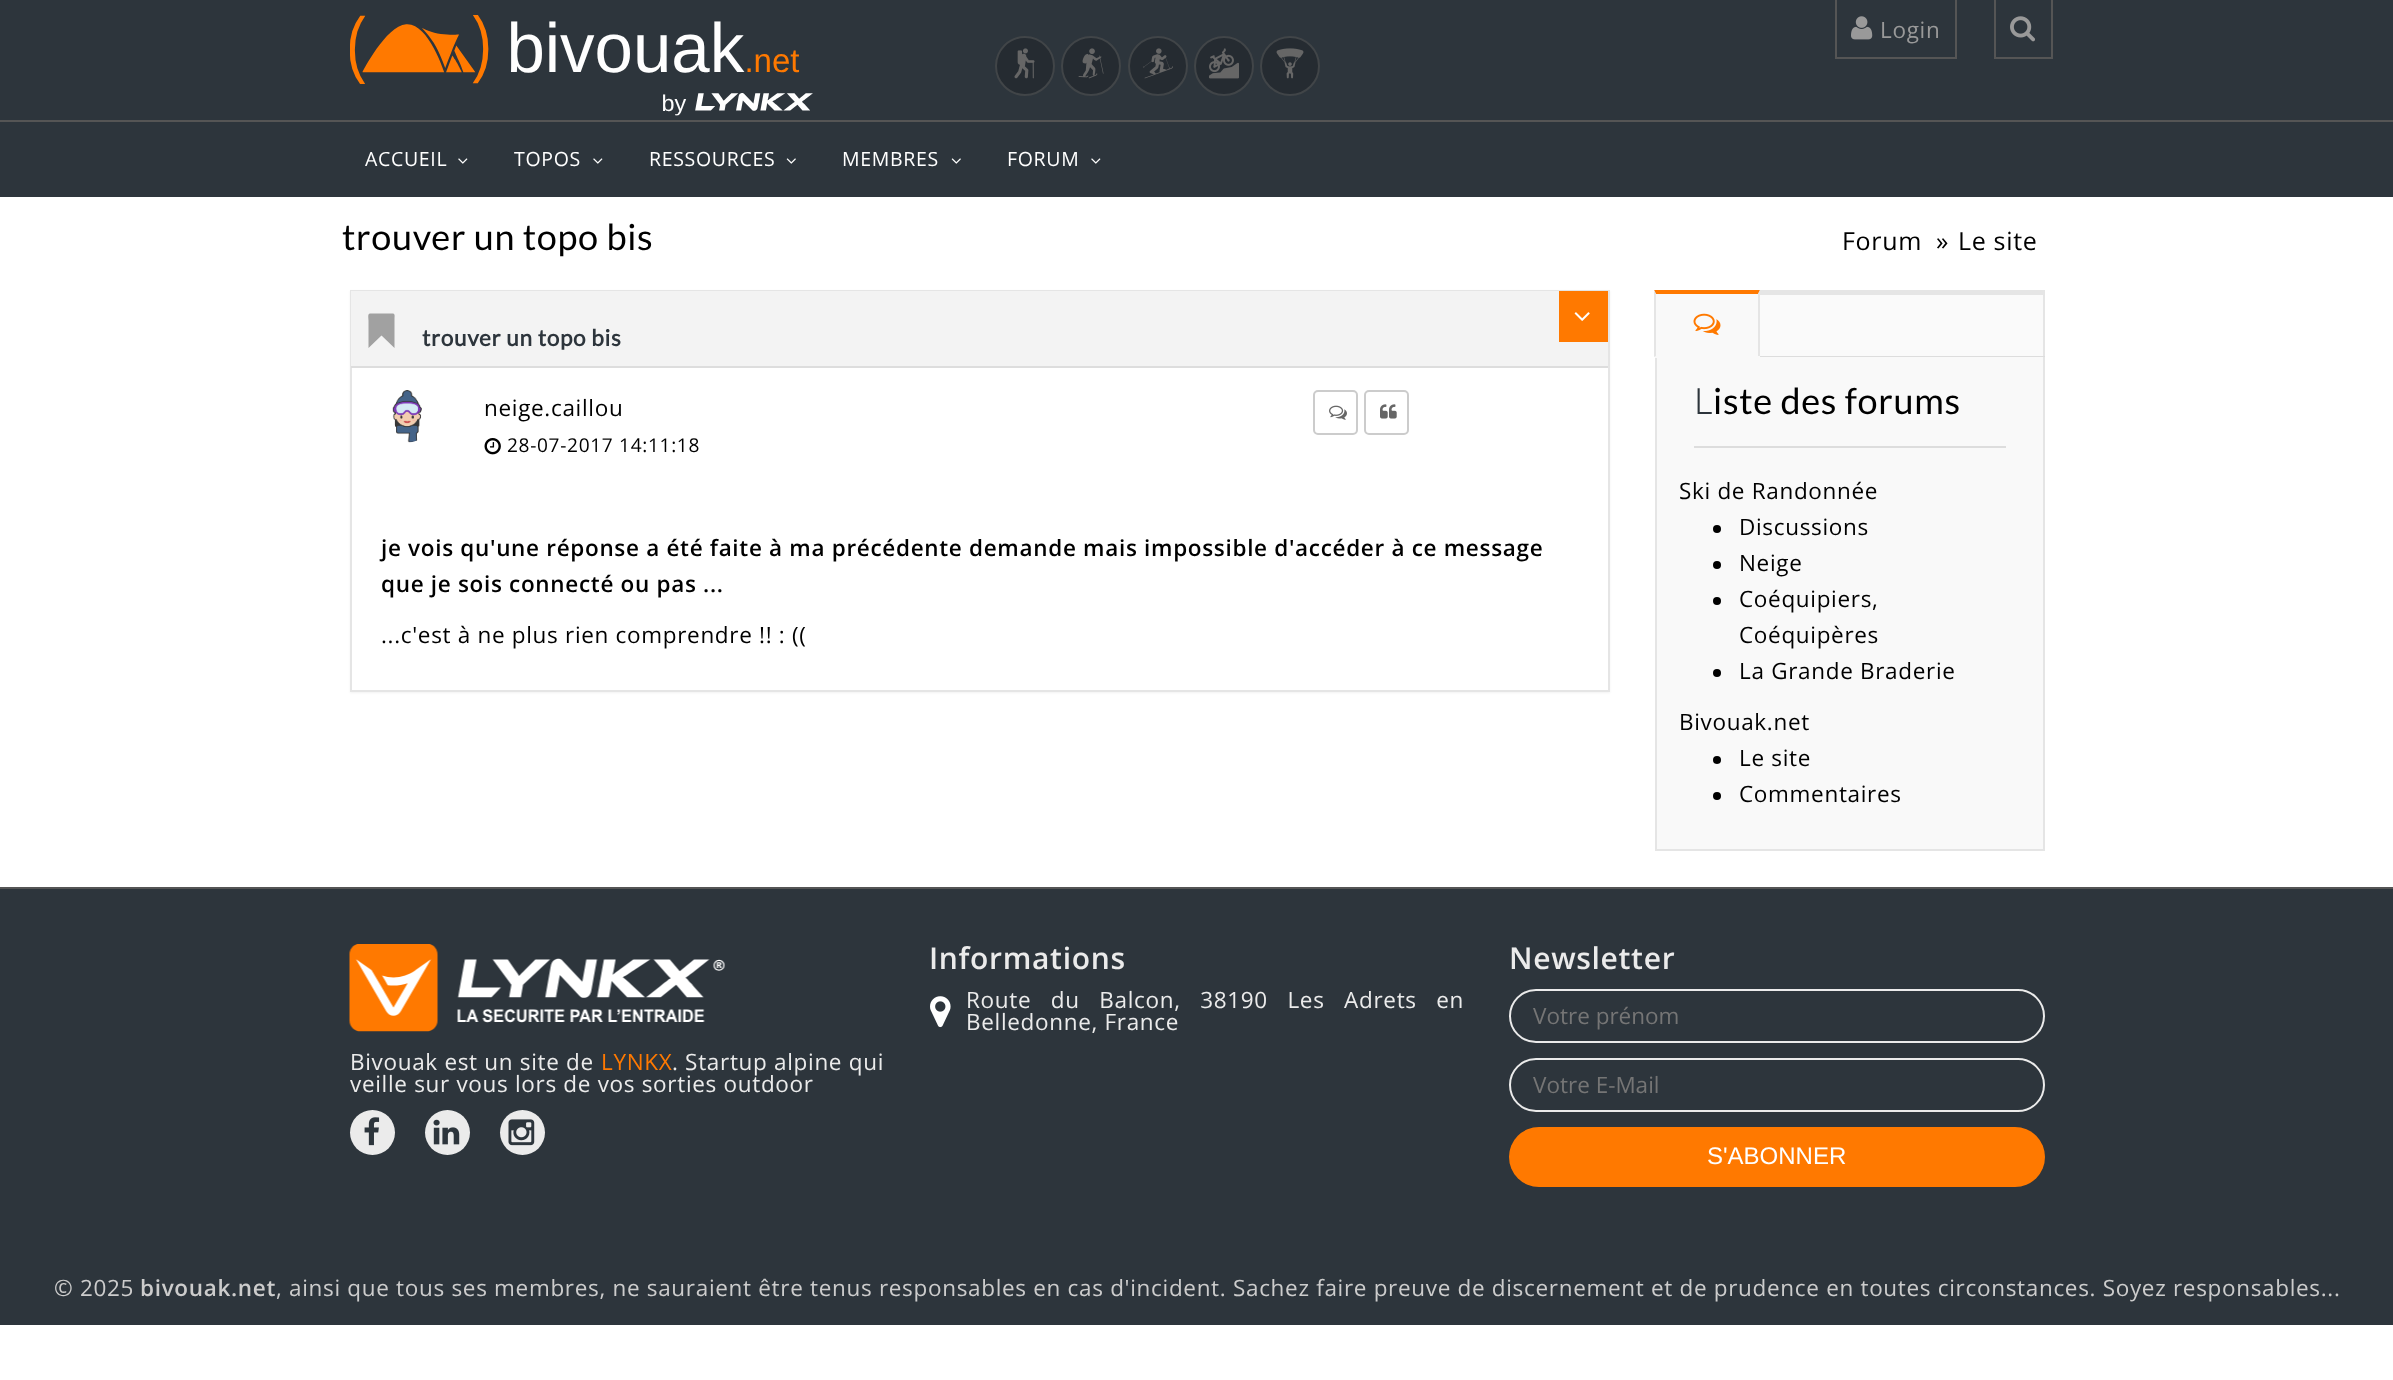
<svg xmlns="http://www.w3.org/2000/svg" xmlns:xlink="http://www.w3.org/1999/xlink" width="2393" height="1380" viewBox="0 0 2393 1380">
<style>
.cls-1{font:22.5px Open Sans;letter-spacing:0.68px;fill:#999999}
.cls-2{font:19.5px Open Sans;letter-spacing:0.68px;fill:#ffffff}
.cls-3{font:36px Lato;letter-spacing:0.68px;fill:#000000}
.cls-4{font:25px Open Sans;letter-spacing:0.68px;fill:#000000}
.cls-5{font:bold 22.5px Lato;letter-spacing:0.68px;fill:#2d353c}
.cls-6{font:22.5px Open Sans;letter-spacing:0.68px;fill:#000000}
.cls-7{font:19.1px Open Sans;letter-spacing:0.68px;fill:#000000}
.cls-8{font:600 22.5px Open Sans;letter-spacing:0.68px;fill:#000000}
.cls-9{font:300 36px Noto Sans;letter-spacing:0.68px;fill:#2d353c}
.cls-10{font:22.5px Open Sans;letter-spacing:0.68px;fill:#ebebeb}
.cls-11{font:22.5px Open Sans;letter-spacing:0.68px;fill:#ff7900}
.cls-12{font:600 30px Open Sans;letter-spacing:0.68px;fill:#ebebeb}
.cls-13{font:22.5px Open Sans;fill:#757575}
.cls-14{font:24px Liberation Sans;fill:#ffffff}
.cls-15{font:22.5px Open Sans;letter-spacing:0.68px;fill:#cccccc}
.cls-16{font:600 22.5px Open Sans;letter-spacing:0.68px;fill:#cccccc}
</style>
<rect width="100%" height="100%" fill="#ffffff"/>
<rect fill="#2d353c" x="0" y="0" width="2393" height="120"/>
<image xlink:href="image0.png" x="350" y="15" width="450" height="69"/>
<image xlink:href="image1.png" x="663" y="93" width="150" height="23"/>
<circle fill="#252b31" stroke="#414548" stroke-width="2" cx="1025" cy="66" r="29"/>
<image xlink:href="image2.png" x="1014" y="48" width="21" height="31"/>
<circle fill="#252b31" stroke="#414548" stroke-width="2" cx="1091" cy="66" r="29"/>
<image xlink:href="image3.png" x="1078" y="48" width="26" height="31"/>
<circle fill="#252b31" stroke="#414548" stroke-width="2" cx="1158" cy="66" r="29"/>
<image xlink:href="image4.png" x="1143" y="48" width="30" height="31"/>
<circle fill="#252b31" stroke="#414548" stroke-width="2" cx="1224" cy="66" r="29"/>
<image xlink:href="image5.png" x="1209" y="48" width="30" height="31"/>
<circle fill="#252b31" stroke="#414548" stroke-width="2" cx="1290" cy="66" r="29"/>
<image xlink:href="image6.png" x="1276" y="48" width="28" height="31"/>
<rect fill="#555555" x="1955" y="0" width="2" height="59"/>
<rect fill="#555555" x="1835" y="57" width="121" height="2"/>
<rect fill="#555555" x="1835" y="0" width="2" height="59"/>
<image xlink:href="image7.png" x="1851" y="16" width="22" height="24"/>
<rect fill="#555555" x="2051" y="0" width="2" height="59"/>
<rect fill="#555555" x="1994" y="57" width="58" height="2"/>
<rect fill="#555555" x="1994" y="0" width="2" height="59"/>
<image xlink:href="image8.png" x="2010" y="16" width="25" height="26"/>
<rect fill="#2d353c" x="0" y="122" width="2393" height="75"/>
<rect fill="#555555" x="0" y="120" width="2393" height="2"/>
<image xlink:href="image9.png" x="458" y="158" width="10" height="6"/>
<image xlink:href="image9.png" x="593" y="158" width="10" height="6"/>
<image xlink:href="image10.png" x="786" y="158" width="10" height="6"/>
<image xlink:href="image10.png" x="951" y="158" width="10" height="6"/>
<image xlink:href="image9.png" x="1091" y="158" width="10" height="6"/>
<rect fill="#000000" fill-opacity="0.05" filter="blur(1px)" x="350" y="291" width="1260" height="402"/>
<rect fill="#ffffff" x="352" y="368" width="1256" height="322"/>
<rect fill="none" stroke="#e5e5e5" stroke-width="2" x="351" y="291" width="1258" height="400"/>
<rect fill="#f3f3f3" x="351" y="291" width="1257" height="75"/>
<path fill="#a1a1a1" d="M370 313.5H389C396 313.5 394.5 313.5 394.5 320.5V348L381.5 335.5L368.5 348V320.5C368.5 318 367.5 313.5 370 313.5Z"/>
<rect fill="#ff7900" x="1559" y="291" width="49" height="51"/>
<image xlink:href="image11.png" x="1574" y="312" width="16" height="9"/>
<rect fill="#dddddd" x="351" y="366" width="1257" height="2"/>
<image xlink:href="image12.png" x="392" y="390" width="30" height="53"/>
<image xlink:href="image13.png" x="484" y="438" width="17" height="17"/>
<rect fill="none" stroke="#cccccc" stroke-width="2" x="1314" y="391" width="43" height="43" rx="4"/>
<image xlink:href="image14.png" x="1329" y="405" width="18" height="15"/>
<rect fill="none" stroke="#cccccc" stroke-width="2" x="1365" y="391" width="43" height="43" rx="4"/>
<image xlink:href="image15.png" x="1380" y="404" width="17" height="15"/>
<rect fill="#fafafa" x="1760" y="295" width="283" height="61"/>
<rect fill="#e5e5e5" x="1655" y="290" width="390" height="5"/>
<rect fill="#e5e5e5" x="2043" y="290" width="2" height="561"/>
<rect fill="#dddddd" x="1760" y="356" width="285" height="1"/>
<rect fill="#f9f9f9" x="1656" y="294" width="102" height="62"/>
<path fill="#ff7900" d="M1654 290H1760L1758 294H1656Z"/>
<path fill="#e5e5e5" d="M1760 290V357L1758 356V294Z"/>
<rect fill="#f9f9f9" x="1657" y="357" width="386" height="492"/>
<rect fill="#e5e5e5" x="1655" y="849" width="390" height="2"/>
<rect fill="#e5e5e5" x="1655" y="357" width="2" height="494"/>
<rect fill="#f9f9f9" x="1655" y="356" width="105" height="2"/>
<path fill="#e5e5e5" d="M1654 357V290L1656 294V356Z"/>
<image xlink:href="image16.png" x="1693" y="313" width="28" height="22"/>
<rect fill="#dddddd" x="1694" y="446" width="312" height="2"/>
<circle fill="#000000" cx="1717" cy="529" r="4"/>
<circle fill="#000000" cx="1717" cy="565" r="4"/>
<circle fill="#000000" cx="1717" cy="601" r="4"/>
<circle fill="#000000" cx="1717" cy="673" r="4"/>
<circle fill="#000000" cx="1717" cy="760" r="4"/>
<circle fill="#000000" cx="1717" cy="796" r="4"/>
<rect fill="#2d353c" x="0" y="889" width="2393" height="436"/>
<rect fill="#555555" x="0" y="887" width="2393" height="2"/>
<image xlink:href="image17.png" x="349" y="944" width="376" height="88"/>
<circle fill="#ebebeb" cx="372.5" cy="1132.5" r="22.5"/>
<image xlink:href="image18.png" x="364" y="1117" width="16" height="29"/>
<circle fill="#ebebeb" cx="447.5" cy="1132.5" r="22.5"/>
<image xlink:href="image19.png" x="433" y="1119" width="27" height="26"/>
<circle fill="#ebebeb" cx="522.5" cy="1132.5" r="22.5"/>
<image xlink:href="image20.png" x="508" y="1119" width="27" height="27"/>
<image xlink:href="image21.png" x="930" y="996" width="21" height="32"/>
<rect fill="none" stroke="#ebebeb" stroke-width="2" x="1510" y="990" width="534" height="52" rx="26"/>
<rect fill="none" stroke="#ebebeb" stroke-width="2" x="1510" y="1059" width="534" height="52" rx="26"/>
<rect fill="#ff7900" x="1509" y="1127" width="536" height="60" rx="30"/>
<text class="cls-1" x="1880" y="38">Login</text>
<text class="cls-2" x="365" y="166">ACCUEIL</text>
<text class="cls-2" x="514" y="166">TOPOS</text>
<text class="cls-2" x="649" y="166">RESSOURCES</text>
<text class="cls-2" x="842" y="166">MEMBRES</text>
<text class="cls-2" x="1007" y="166">FORUM</text>
<text class="cls-3" x="342" y="250">trouver un topo bis</text>
<text class="cls-4" x="1842" y="250">Forum</text>
<text class="cls-4" x="1936" y="250">»</text>
<text class="cls-4" x="1958" y="250">Le site</text>
<text class="cls-5" x="422" y="346">trouver un topo bis</text>
<text class="cls-6" x="484" y="416">neige.caillou</text>
<text class="cls-7" x="507" y="452">28-07-2017 14:11:18</text>
<text class="cls-8"><tspan x="381" y="556">je vois qu'une réponse a été faite à ma précédente demande mais impossible d'accéder à ce message</tspan><tspan x="381" y="592">que je sois connecté ou pas ...</tspan></text>
<text class="cls-6" x="381" y="643">...c'est à ne plus rien comprendre !! : ((</text>
<text class="cls-9" x="1694" y="414">L</text>
<text class="cls-3" x="1713" y="414">iste des forums</text>
<text class="cls-6" x="1679" y="499">Ski de Randonnée</text>
<text class="cls-6"><tspan x="1739" y="535">Discussions</tspan><tspan x="1739" y="571">Neige</tspan><tspan x="1739" y="607">Coéquipiers,</tspan><tspan x="1739" y="643">Coéquipères</tspan><tspan x="1739" y="679">La Grande Braderie</tspan></text>
<text class="cls-6" x="1679" y="730">Bivouak.net</text>
<text class="cls-6"><tspan x="1739" y="766">Le site</tspan><tspan x="1739" y="802">Commentaires</tspan></text>
<text class="cls-10" x="350" y="1070">Bivouak est un site de</text>
<text class="cls-11" x="601" y="1070">LYNKX</text>
<text class="cls-10" x="672" y="1070">. Startup alpine qui</text>
<text class="cls-10" x="350" y="1092">veille sur vous lors de vos sorties outdoor</text>
<text class="cls-12" x="929" y="969">Informations</text>
<text class="cls-10"><tspan x="966" y="1008" word-spacing="13">Route du Balcon, 38190 Les Adrets en</tspan><tspan x="966" y="1030">Belledonne, France</tspan></text>
<text class="cls-12" x="1509" y="969">Newsletter</text>
<text class="cls-13" x="1533" y="1024">Votre prénom</text>
<text class="cls-13" x="1533" y="1093">Votre E-Mail</text>
<text class="cls-14" x="1707" y="1164">S'ABONNER</text>
<text class="cls-15" x="54" y="1296">© 2025</text>
<text class="cls-16" x="140" y="1296">bivouak.net</text>
<text class="cls-15" x="276" y="1296">, ainsi que tous ses membres, ne sauraient être tenus responsables en cas d'incident. Sachez faire preuve de discernement et de prudence en toutes circonstances. Soyez responsables...</text>
</svg>
